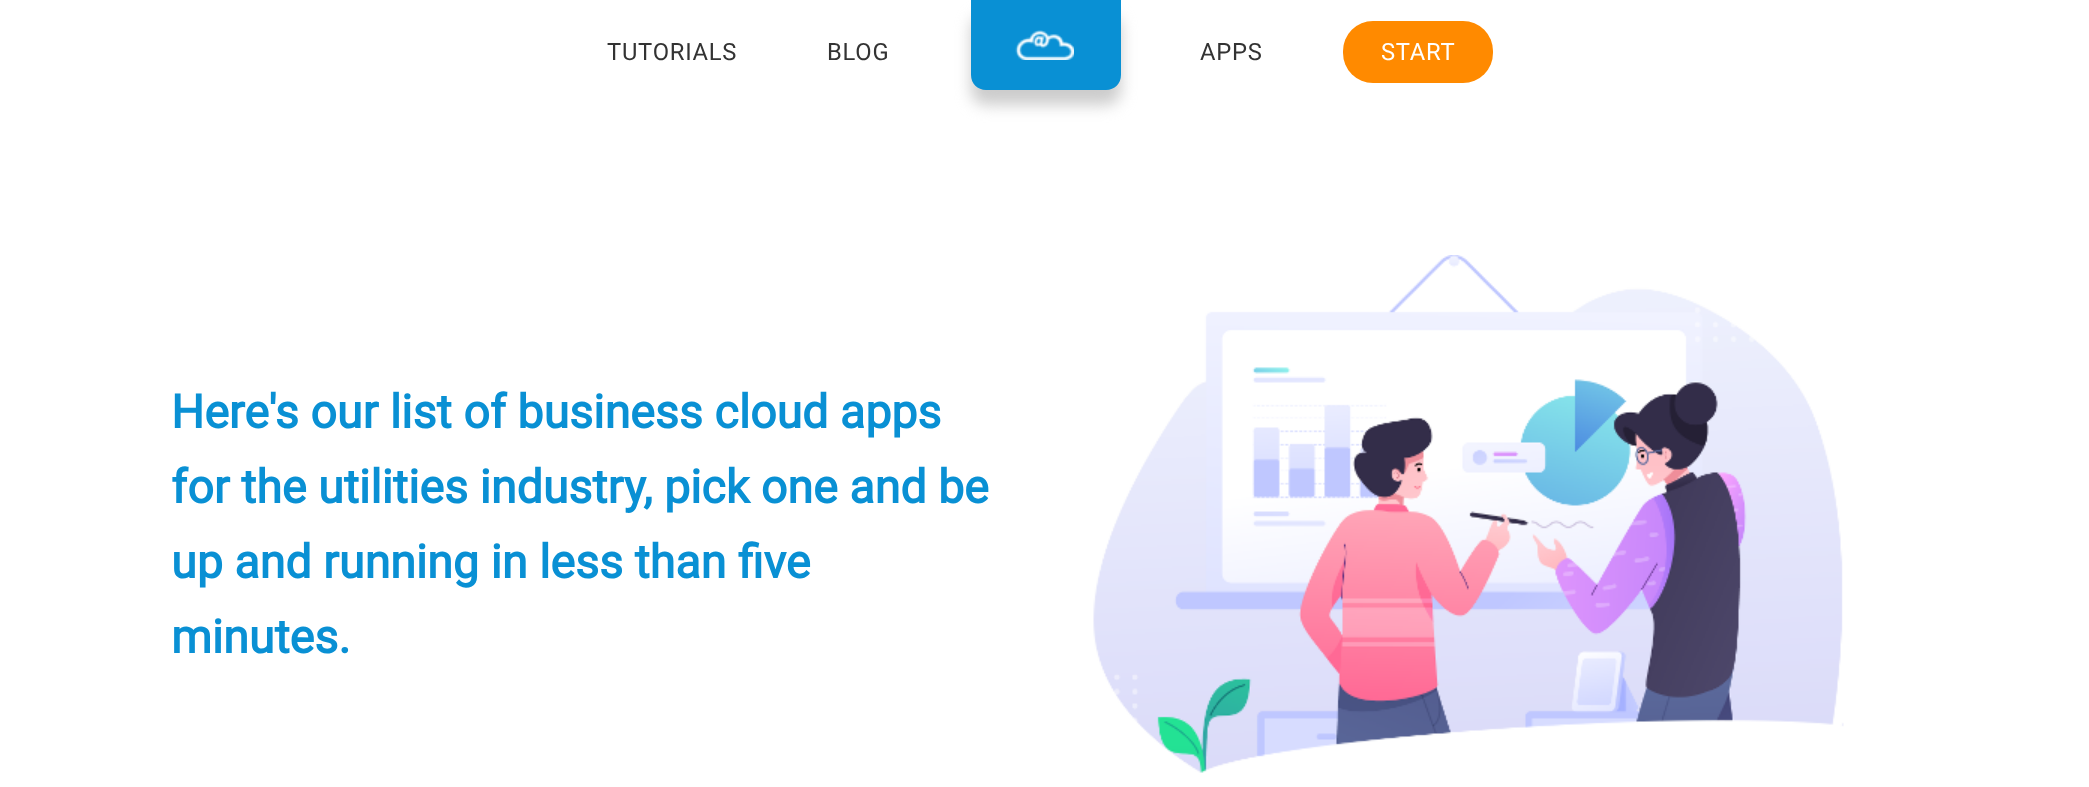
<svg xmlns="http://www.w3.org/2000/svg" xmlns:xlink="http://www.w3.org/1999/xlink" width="2089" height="787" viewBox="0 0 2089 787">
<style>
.cls-1{font:23.75px Roboto;letter-spacing:0.75px;fill:#333333}
.cls-2{font:23.75px Roboto;letter-spacing:0.75px;fill:#ffffff}
.cls-3{font:bold 46.5px Roboto;fill:#0990d4}
</style>
<rect width="100%" height="100%" fill="#ffffff"/>
<rect fill="#cccccc" filter="blur(7.5px)" x="971" y="15" width="150" height="90" rx="15"/>
<path fill="#0990d4" d="M971 0H1121V75C1121 83.5 1114.5 90 1106 90H986C977.5 90 971 83.5 971 75Z"/>
<image xlink:href="image0.png" x="1015" y="30" width="59" height="30"/>
<rect fill="#ff8a00" x="1343" y="21" width="150" height="62" rx="30"/>
<image xlink:href="image1.png" x="1093" y="255" width="751" height="518"/>
<text class="cls-1" x="607" y="60">TUTORIALS</text>
<text class="cls-1" x="827" y="60">BLOG</text>
<text class="cls-1" x="1200" y="60">APPS</text>
<text class="cls-2" x="1381" y="60">START</text>
<text class="cls-3"><tspan x="171" y="428">Here's our list of business cloud apps</tspan><tspan x="171" y="503">for the utilities industry, pick one and be</tspan><tspan x="171" y="578">up and running in less than five</tspan><tspan x="171" y="653">minutes.</tspan></text>
</svg>
